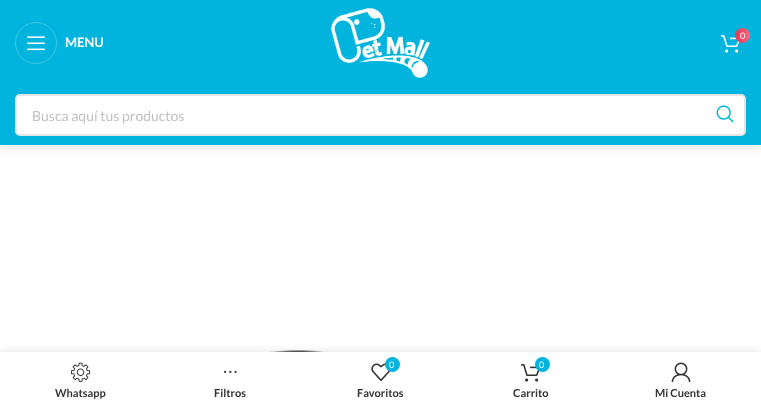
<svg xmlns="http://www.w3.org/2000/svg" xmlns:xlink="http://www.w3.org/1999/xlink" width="761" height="407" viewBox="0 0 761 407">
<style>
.cls-1{font:9px Lato;fill:#ffffff}
.cls-2{font:bold 13px Lato;fill:#ffffff}
.cls-3{font:14px Lato;fill:#c1c1c1}
.cls-4{font:bold 11px Lato;fill:#333333}
</style>
<defs>
<linearGradient id="g1" gradientUnits="userSpaceOnUse" x1="735" y1="36" x2="752" y2="36"><stop offset="0.18" stop-color="#e6405d"/><stop offset="1" stop-color="#fc6f86"/></linearGradient>
</defs>
<rect width="100%" height="100%" fill="#ffffff"/>
<rect fill="#000000" fill-opacity="0.08" filter="blur(5px)" x="0" y="89" width="761" height="60"/>
<rect fill="#00b4dd" x="0" y="0" width="761" height="145"/>
<image xlink:href="image0.png" x="331" y="7" width="99" height="71"/>
<image xlink:href="image1.png" x="721" y="35" width="19" height="18"/>
<circle fill="url(#g1)" cx="742.5" cy="35.5" r="7.5"/>
<circle fill="none" stroke="#40c7e6" cx="36" cy="43" r="20.5"/>
<image xlink:href="image2.png" x="27" y="36" width="18" height="15"/>
<rect fill="#ffffff" x="15" y="94" width="731" height="42" rx="5"/>
<rect fill="none" stroke="#000000" stroke-opacity="0.1" stroke-width="2" x="16" y="95" width="729" height="40" rx="4"/>
<image xlink:href="image3.png" x="716" y="105" width="18" height="18"/>
<image xlink:href="image4.png" x="145" y="350" width="282" height="2"/>
<rect fill="#000000" fill-opacity="0.12" filter="blur(4.5px)" x="0" y="352" width="761" height="55"/>
<rect fill="#ffffff" x="0" y="352" width="761" height="55"/>
<image xlink:href="image5.png" x="71" y="362" width="20" height="20"/>
<image xlink:href="image6.png" x="224" y="370" width="13" height="3"/>
<image xlink:href="image7.png" x="371" y="363" width="20" height="18"/>
<circle fill="#00b4dd" cx="392.5" cy="364.5" r="7.5"/>
<image xlink:href="image8.png" x="521" y="364" width="19" height="18"/>
<circle fill="#00b4dd" cx="542.5" cy="364.5" r="7.5"/>
<image xlink:href="image9.png" x="671" y="362" width="20" height="20"/>
<text class="cls-1" x="740" y="39">0</text>
<text class="cls-2" x="65" y="47">MENU</text>
<text class="cls-3" x="32" y="121">Busca aquí tus productos</text>
<text class="cls-4" x="55" y="397">Whatsapp</text>
<text class="cls-4" x="214" y="397">Filtros</text>
<text class="cls-1" x="389" y="368">0</text>
<text class="cls-4" x="357" y="397">Favoritos</text>
<text class="cls-1" x="539" y="368">0</text>
<text class="cls-4" x="513" y="397">Carrito</text>
<text class="cls-4" x="655" y="397">Mi Cuenta</text>
</svg>
